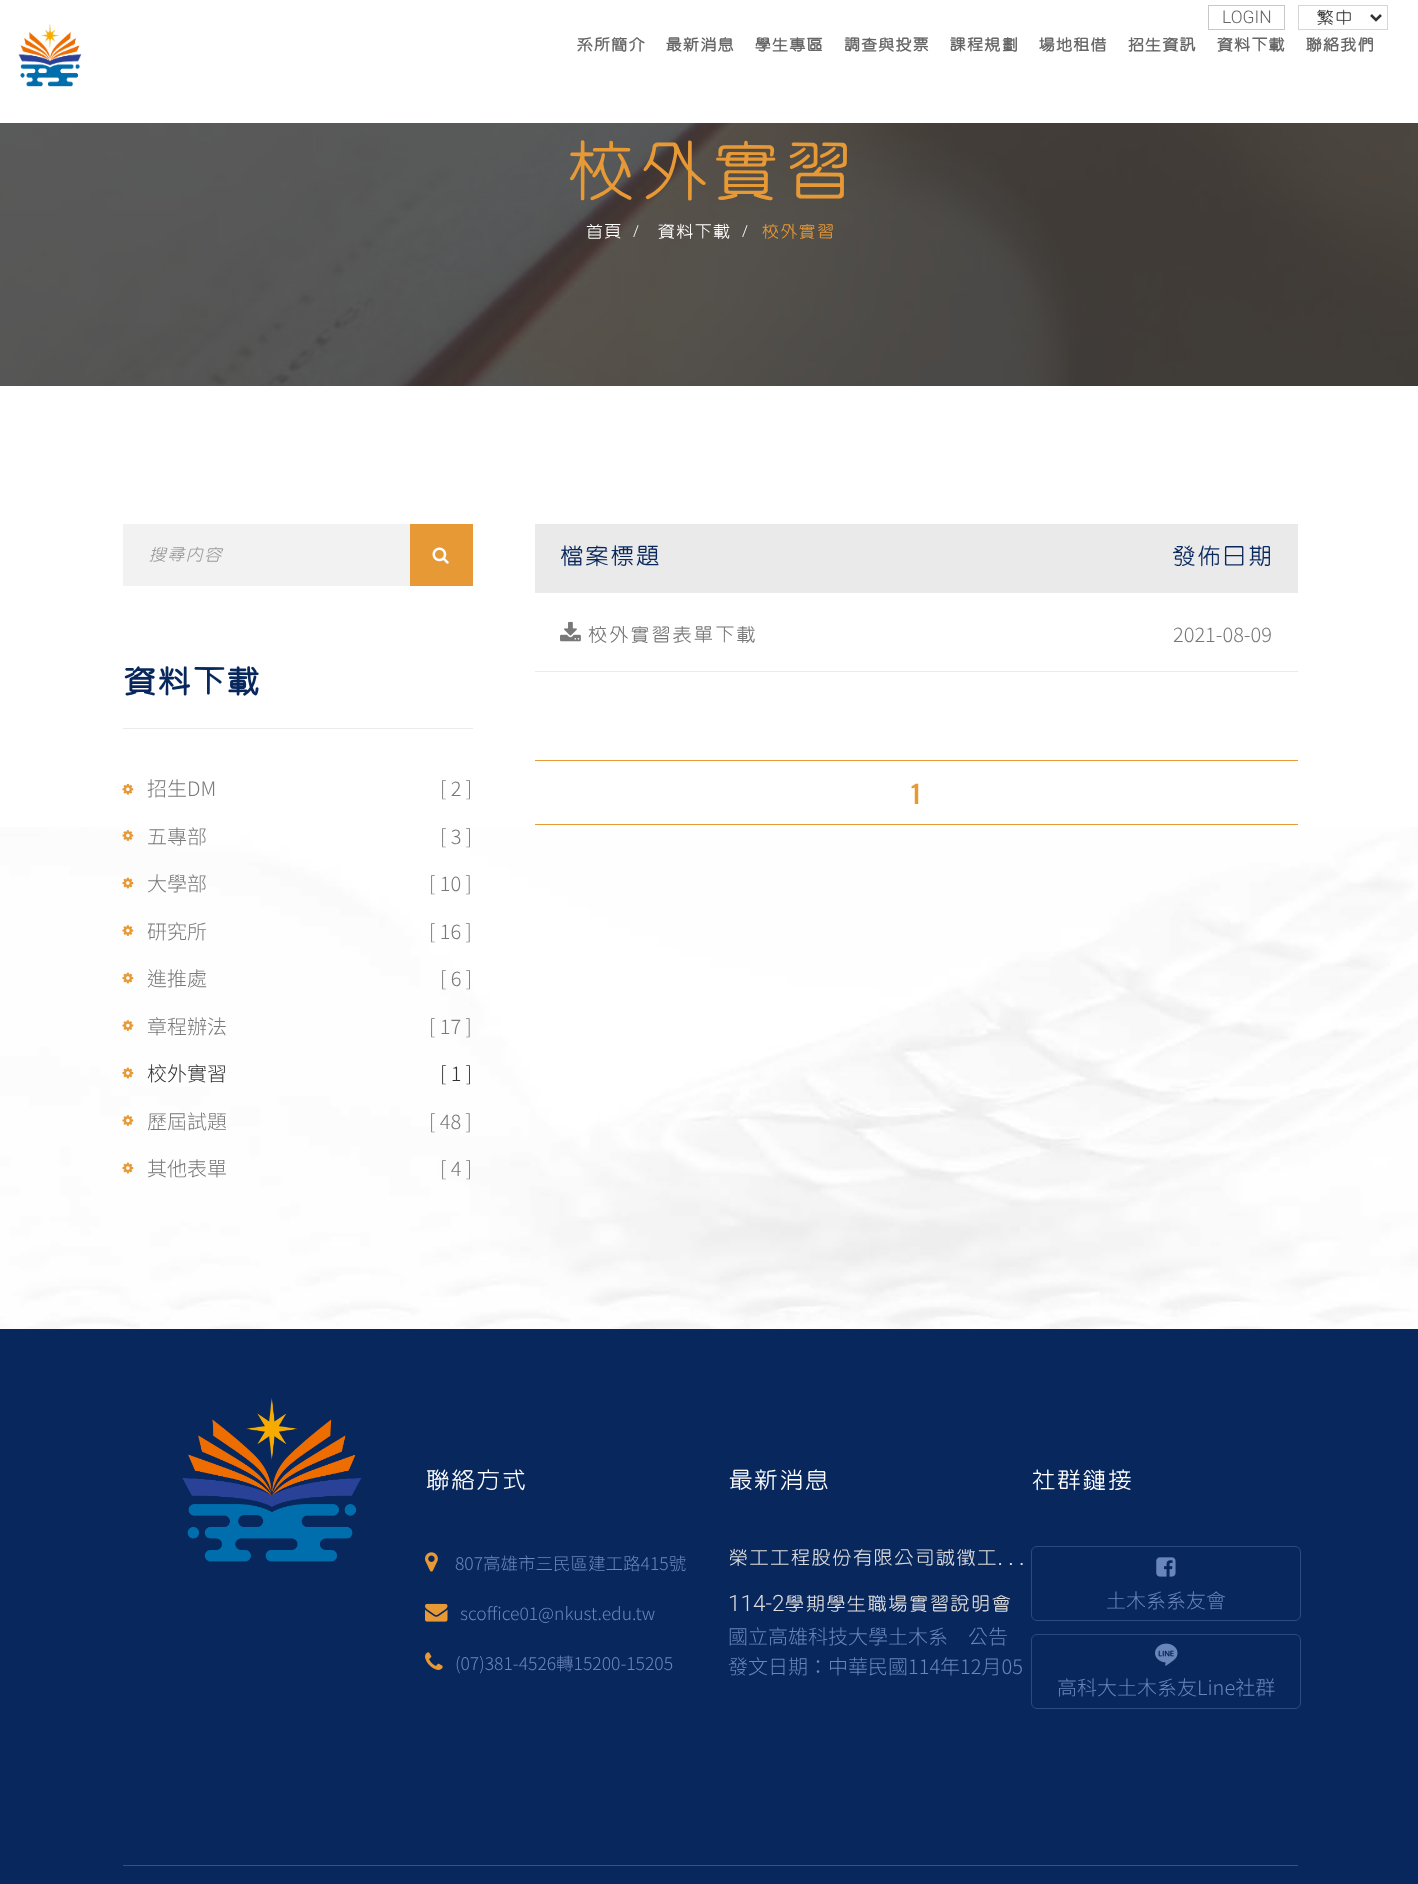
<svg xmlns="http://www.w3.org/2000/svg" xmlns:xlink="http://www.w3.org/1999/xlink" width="1418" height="1884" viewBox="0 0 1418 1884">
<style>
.cls-1{font:300 17.5px Roboto;fill:#666666}
.cls-2{font:500 20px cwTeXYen;fill:#323232}
.cls-3{font:bold 18.75px cwTeXYen;fill:#666666}
.cls-4{font:500 79px cwTeXYen;fill:#e79935}
.cls-5{font:500 20px cwTeXYen;fill:#ffffff}
.cls-6{font:300 15px Roboto;fill:#ffffff}
.cls-7{font:500 20px cwTeXYen;fill:#e79935}
.cls-8{font:italic 500 20px cwTeXYen;fill:#9a9a9a}
.cls-9{font:bold 37.5px cwTeXYen;fill:#08275d}
.cls-10{font:300 20px Noto Sans TC;fill:#787878}
.cls-11{font:300 20px Noto Sans TC;fill:#323232}
.cls-12{font:500 27.5px cwTeXYen;fill:#08275d}
.cls-13{font:500 22.5px cwTeXYen;letter-spacing:0.5px;fill:#787878}
.cls-14{font:500 25px Oswald;fill:#e79935}
.cls-15{font:500 27.5px cwTeXYen;fill:#ffffff}
.cls-16{font:300 17.5px Noto Sans TC;fill:#6a86ba}
.cls-17{font:500 22.5px cwTeXYen;fill:#dcdcdc}
.cls-18{font:300 22.5px Roboto;fill:#dcdcdc}
.cls-19{font:300 20px Noto Sans TC;fill:#6a86ba}
</style>
<rect width="100%" height="100%" fill="#08275d"/>
<rect fill="#ffffff" x="0" y="0" width="1418" height="123"/>
<image xlink:href="image0.png" x="18" y="23" width="64" height="64"/>
<rect fill="none" stroke="#c8c8c8" x="1208.5" y="5.5" width="76" height="24"/>
<rect fill="none" stroke="#d6d6d6" x="1298.5" y="5.5" width="89" height="24"/>
<path fill="none" stroke="#323232" stroke-width="2.5" d="M1371 15L1376 20L1381 15"/>
<image xlink:href="image1.png" x="0" y="123" width="1418" height="263"/>
<rect fill="#ffffff" x="0" y="386" width="1418" height="441"/>
<image xlink:href="image2.png" x="0" y="827" width="1418" height="502"/>
<rect fill="#f2f2f2" x="123" y="524" width="287" height="62"/>
<rect fill="#e79935" x="410" y="524" width="63" height="62"/>
<image xlink:href="image3.png" x="432" y="547" width="17" height="17"/>
<rect fill="#eaeaea" x="123" y="728" width="350" height="1"/>
<image xlink:href="image4.png" x="122" y="783" width="12" height="12"/>
<image xlink:href="image5.png" x="122" y="830" width="12" height="11"/>
<image xlink:href="image6.png" x="122" y="877" width="12" height="12"/>
<image xlink:href="image7.png" x="122" y="925" width="12" height="11"/>
<image xlink:href="image8.png" x="122" y="972" width="12" height="12"/>
<image xlink:href="image7.png" x="122" y="1020" width="12" height="11"/>
<image xlink:href="image8.png" x="122" y="1067" width="12" height="12"/>
<image xlink:href="image7.png" x="122" y="1115" width="12" height="11"/>
<image xlink:href="image9.png" x="122" y="1162" width="12" height="12"/>
<rect fill="#eaeaea" x="535" y="524" width="763" height="69"/>
<rect fill="#eaeaea" x="535" y="671" width="763" height="1"/>
<image xlink:href="image10.png" x="560" y="621" width="21" height="21"/>
<rect fill="#e79935" x="535" y="760" width="763" height="1"/>
<rect fill="#e79935" x="535" y="824" width="763" height="1"/>
<image xlink:href="image11.png" x="182" y="1398" width="180" height="164"/>
<image xlink:href="image12.png" x="425" y="1552" width="13" height="20"/>
<image xlink:href="image13.png" x="425" y="1603" width="23" height="19"/>
<image xlink:href="image14.png" x="425" y="1652" width="18" height="18"/>
<rect fill="none" stroke="#2d4b80" x="1031.5" y="1546.5" width="269" height="74" rx="5.5"/>
<image xlink:href="image15.png" x="1156" y="1557" width="20" height="20"/>
<rect fill="none" stroke="#2d4b80" x="1031.5" y="1634.5" width="269" height="74" rx="5.5"/>
<image xlink:href="image16.png" x="1155" y="1643" width="23" height="23"/>
<rect fill="#39527d" x="123" y="1865" width="1175" height="1"/>
<text class="cls-1" x="1222" y="23">LOGIN</text>
<text class="cls-2" x="1316" y="24">繁中</text>
<text class="cls-3" x="576" y="51">系所簡介</text>
<text class="cls-3" x="665" y="51">最新消息</text>
<text class="cls-3" x="754" y="51">學生專區</text>
<text class="cls-3" x="843" y="51">調查與投票</text>
<text class="cls-3" x="949" y="51">課程規劃</text>
<text class="cls-3" x="1038" y="51">場地租借</text>
<text class="cls-3" x="1127" y="51">招生資訊</text>
<text class="cls-3" x="1216" y="51">資料下載</text>
<text class="cls-3" x="1305" y="51">聯絡我們</text>
<text class="cls-4" x="564" y="197">校外實習</text>
<text class="cls-5" x="585" y="238">首頁</text>
<text class="cls-6" x="633" y="236">/</text>
<text class="cls-5" x="657" y="238">資料下載</text>
<text class="cls-6" x="742" y="236">/</text>
<text class="cls-7" x="761" y="238">校外實習</text>
<text class="cls-8" x="148" y="561">搜尋內容</text>
<text class="cls-9" x="122" y="694">資料下載</text>
<text class="cls-10" x="147" y="796">招生DM</text>
<text class="cls-10" x="440" y="796">[ 2 ]</text>
<text class="cls-10" x="147" y="844">五專部</text>
<text class="cls-10" x="440" y="844">[ 3 ]</text>
<text class="cls-10" x="147" y="891">大學部</text>
<text class="cls-10" x="429" y="891">[ 10 ]</text>
<text class="cls-10" x="147" y="939">研究所</text>
<text class="cls-10" x="429" y="939">[ 16 ]</text>
<text class="cls-10" x="147" y="986">進推處</text>
<text class="cls-10" x="440" y="986">[ 6 ]</text>
<text class="cls-10" x="147" y="1034">章程辦法</text>
<text class="cls-10" x="429" y="1034">[ 17 ]</text>
<text class="cls-11" x="147" y="1081">校外實習</text>
<text class="cls-11" x="440" y="1081">[ 1 ]</text>
<text class="cls-10" x="147" y="1129">歷屆試題</text>
<text class="cls-10" x="429" y="1129">[ 48 ]</text>
<text class="cls-10" x="147" y="1176">其他表單</text>
<text class="cls-10" x="440" y="1176">[ 4 ]</text>
<text class="cls-12" x="559" y="565">檔案標題</text>
<text class="cls-12" x="1171" y="565">發佈日期</text>
<text class="cls-13" x="587" y="642">校外實習表單下載</text>
<text class="cls-10" x="1173" y="642">2021-08-09</text>
<text class="cls-14" x="911" y="804">1</text>
<text class="cls-15" x="425" y="1489">聯絡方式</text>
<text class="cls-16" x="455" y="1570">807高雄市三民區建工路415號</text>
<text class="cls-16" x="460" y="1620">scoffice01@nkust.edu.tw</text>
<text class="cls-16" x="455" y="1670">(07)381-4526轉15200-15205</text>
<text class="cls-15" x="728" y="1489">最新消息</text>
<text class="cls-17" x="728" y="1565">榮工工程股份有限公司誠徵工…</text>
<text class="cls-18" x="728" y="1611">114-2</text>
<text class="cls-17" x="784" y="1611">學期學生職場實習說明會</text>
<text class="cls-19"><tspan x="728" y="1644">國立高雄科技大學土木系　公告</tspan><tspan x="728" y="1674">發文日期：中華民國114年12月05</tspan></text>
<text class="cls-15" x="1031" y="1489">社群鏈接</text>
<text class="cls-19" x="1106" y="1608">土木系系友會</text>
<text class="cls-19" x="1057" y="1695">高科大土木系友Line社群</text>
</svg>
